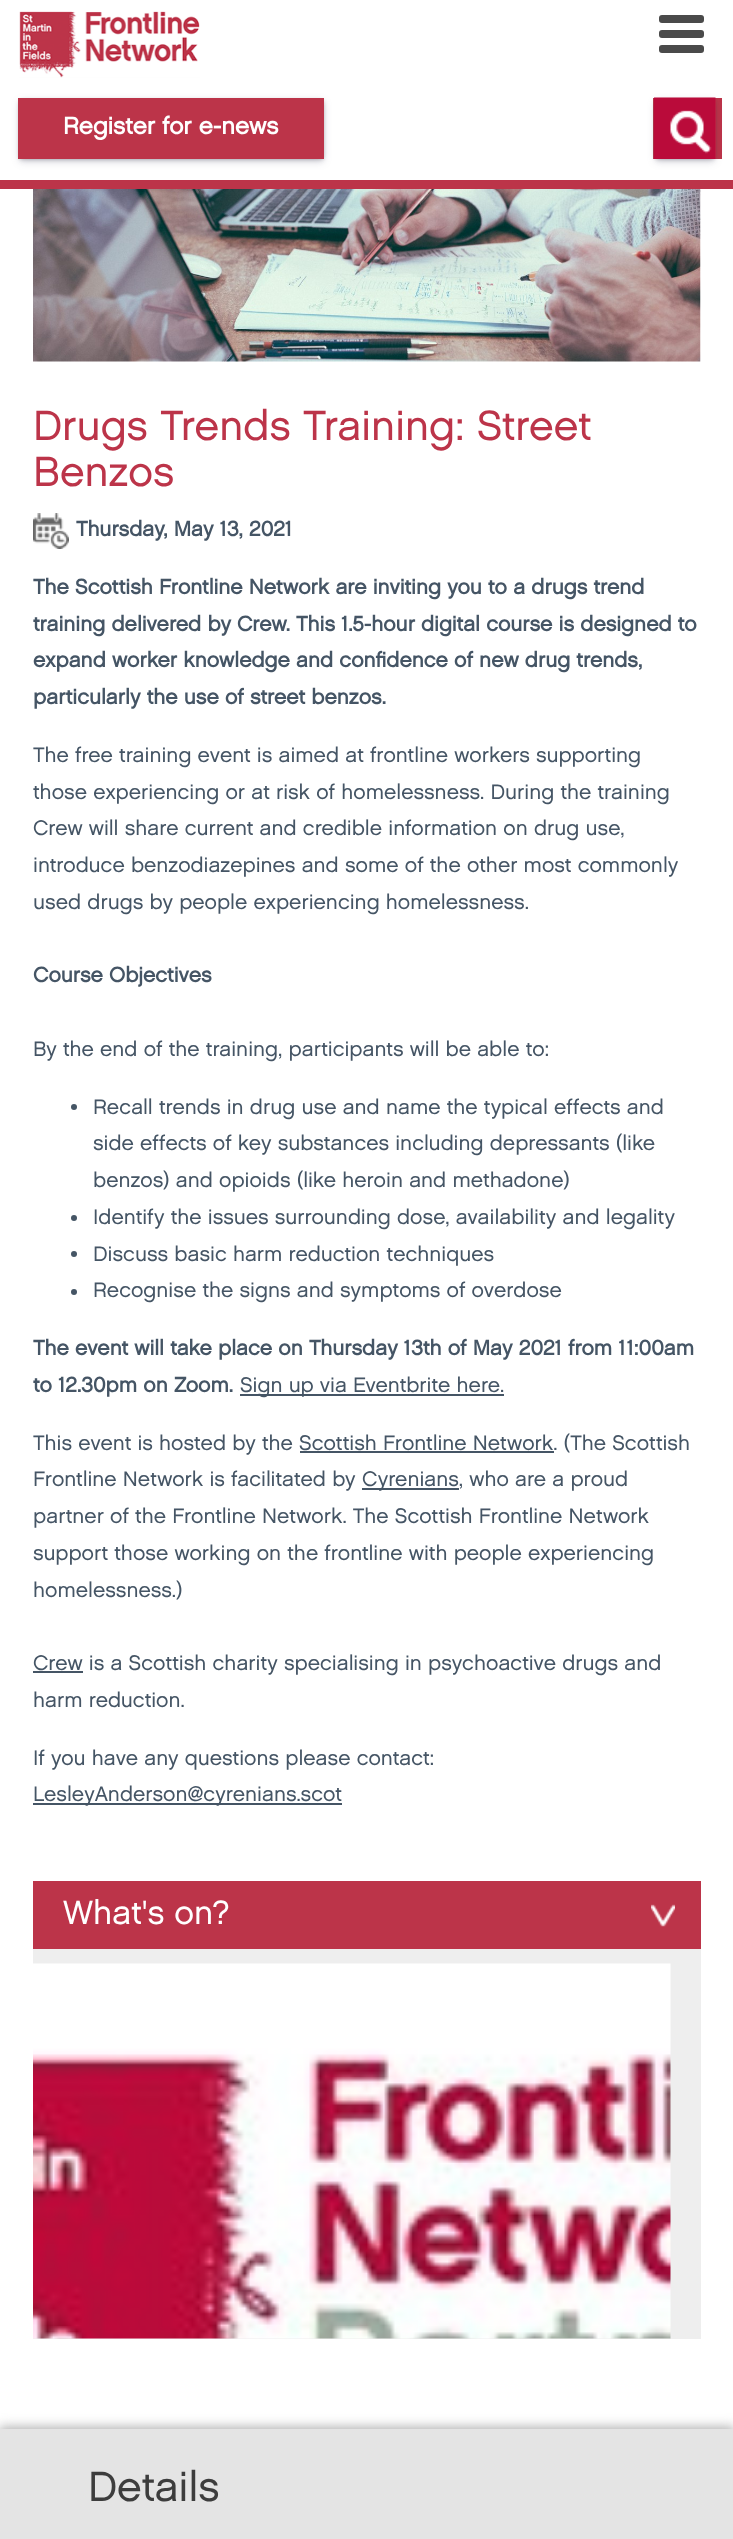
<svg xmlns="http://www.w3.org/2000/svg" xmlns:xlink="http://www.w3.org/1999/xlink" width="733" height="2539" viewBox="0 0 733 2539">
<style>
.cls-1{font:bold 24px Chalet;fill:#ffffff}
.cls-2{font:500 42px Chalet;fill:#bc3449}
.cls-3{font:bold 21px Chalet;fill:#455565}
.cls-4{font:500 21px Chalet;fill:#455565}
.cls-5{font:500 33.5px Chalet;fill:#ffffff}
.cls-6{font:500 42px Chalet;fill:#3d3d3d}
</style>
<rect width="100%" height="100%" fill="#ffffff"/>
<rect fill="none" stroke="#bc3449" stroke-width="9" x="-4.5" y="-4.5" width="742" height="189"/>
<image xlink:href="image0.png" x="19" y="11" width="181" height="67"/>
<rect fill="#4a4a4a" x="659" y="15" width="45" height="8" rx="3"/>
<rect fill="#4a4a4a" x="659" y="30" width="45" height="8" rx="3"/>
<rect fill="#4a4a4a" x="659" y="45" width="45" height="8" rx="3"/>
<rect fill="#000000" fill-opacity="0.3" filter="blur(2px)" x="20" y="101" width="303" height="58"/>
<rect fill="#32325d" fill-opacity="0.25" filter="blur(4px)" x="20" y="102" width="303" height="59"/>
<rect fill="#bc3449" x="18" y="98" width="306" height="61"/>
<rect fill="#bc3449" x="653" y="98" width="69" height="61"/>
<rect fill="#000000" fill-opacity="0.3" filter="blur(2px)" x="656" y="101" width="58" height="58"/>
<rect fill="#32325d" fill-opacity="0.25" filter="blur(4px)" x="656" y="102" width="58" height="59"/>
<rect fill="#bc3449" x="715" y="98" width="1" height="61"/>
<image xlink:href="image1.png" x="654" y="97" width="62" height="62"/>
<image xlink:href="image2.png" x="33" y="189" width="668" height="173"/>
<image xlink:href="image3.png" x="33" y="513" width="36" height="36"/>
<circle fill="#455565" cx="74" cy="1107" r="3"/>
<circle fill="#455565" cx="74" cy="1218" r="3"/>
<circle fill="#455565" cx="74" cy="1254" r="3"/>
<circle fill="#455565" cx="74" cy="1292" r="3"/>
<rect fill="#455565" x="240" y="1394" width="264" height="2"/>
<rect fill="#455565" x="300" y="1451" width="254" height="2"/>
<rect fill="#455565" x="362" y="1488" width="97" height="2"/>
<rect fill="#455565" x="33" y="1671" width="50" height="2"/>
<rect fill="#455565" x="33" y="1803" width="309" height="2"/>
<rect fill="#eeeeee" x="33" y="1949" width="668" height="390"/>
<rect fill="#bc3449" x="33" y="1881" width="668" height="68"/>
<image xlink:href="image4.png" x="651" y="1904" width="24" height="23"/>
<image xlink:href="image5.png" x="33" y="1963" width="638" height="376"/>
<rect fill="#afafaf" filter="blur(6px)" x="-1" y="2427" width="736" height="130"/>
<rect fill="#e4e4e4" x="0" y="2429" width="733" height="110"/>
<text class="cls-1" x="63" y="134">Register for e-news</text>
<text class="cls-2"><tspan x="33" y="440">Drugs Trends Training: Street</tspan><tspan x="33" y="486">Benzos</tspan></text>
<text class="cls-3" x="76" y="536">Thursday, May 13, 2021</text>
<text class="cls-3"><tspan x="33" y="594">The Scottish Frontline Network are inviting you to a drugs trend</tspan><tspan x="33" y="631">training delivered by Crew. This 1.5-hour digital course is designed to</tspan><tspan x="33" y="667">expand worker knowledge and confidence of new drug trends,</tspan><tspan x="33" y="704">particularly the use of street benzos.</tspan></text>
<text class="cls-4"><tspan x="33" y="762">The free training event is aimed at frontline workers supporting</tspan><tspan x="33" y="799">those experiencing or at risk of homelessness. During the training</tspan><tspan x="33" y="835">Crew will share current and credible information on drug use,</tspan><tspan x="33" y="872">introduce benzodiazepines and some of the other most commonly</tspan><tspan x="33" y="909">used drugs by people experiencing homelessness.</tspan></text>
<text class="cls-3" x="33" y="982">Course Objectives</text>
<text class="cls-4" x="33" y="1056">By the end of the training, participants will be able to:</text>
<text class="cls-4"><tspan x="93" y="1114">Recall trends in drug use and name the typical effects and</tspan><tspan x="93" y="1150">side effects of key substances including depressants (like</tspan><tspan x="93" y="1187">benzos) and opioids (like heroin and methadone)</tspan><tspan x="93" y="1224">Identify the issues surrounding dose, availability and legality</tspan><tspan x="93" y="1261">Discuss basic harm reduction techniques</tspan><tspan x="93" y="1297">Recognise the signs and symptoms of overdose</tspan></text>
<text class="cls-3"><tspan x="33" y="1355">The event will take place on Thursday 13th of May 2021 from 11:00am</tspan><tspan x="33" y="1392">to 12.30pm on Zoom.</tspan></text>
<text class="cls-4" x="240" y="1392">Sign up via Eventbrite here.</text>
<text class="cls-4"><tspan x="33" y="1450">This event is hosted by the Scottish Frontline Network. (The Scottish</tspan><tspan x="33" y="1486">Frontline Network is facilitated by</tspan></text>
<text class="cls-4" x="362" y="1486">Cyrenians, who are a proud</text>
<text class="cls-4"><tspan x="33" y="1523">partner of the Frontline Network. The Scottish Frontline Network</tspan><tspan x="33" y="1560">support those working on the frontline with people experiencing</tspan><tspan x="33" y="1597">homelessness.)</tspan></text>
<text class="cls-4"><tspan x="33" y="1670">Crew is a Scottish charity specialising in psychoactive drugs and</tspan><tspan x="33" y="1707">harm reduction.</tspan></text>
<text class="cls-4"><tspan x="33" y="1765">If you have any questions please contact:</tspan><tspan x="33" y="1801">LesleyAnderson@cyrenians.scot</tspan></text>
<text class="cls-5" x="63" y="1924">What's on?</text>
<text class="cls-6" x="88" y="2501">Details</text>
</svg>
